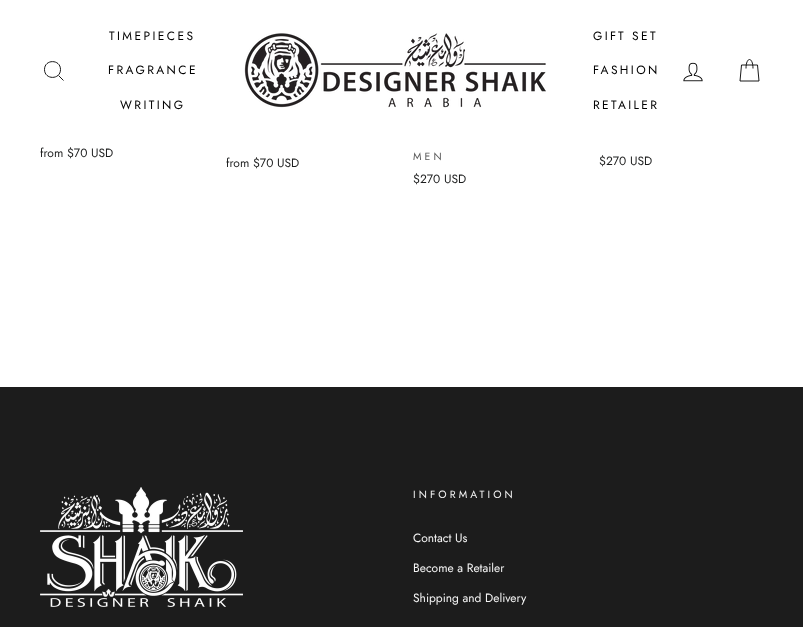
<svg xmlns="http://www.w3.org/2000/svg" xmlns:xlink="http://www.w3.org/1999/xlink" width="803" height="627" viewBox="0 0 803 627">
<style>
.cls-1{font:12px Jost;letter-spacing:2.4px;fill:#000000}
.cls-2{font:12px Jost;fill:#1c1d1d}
.cls-3{font:10.5px Jost;letter-spacing:3.1px;fill:#595959}
.cls-4{font:10.5px Jost;letter-spacing:3.1px;fill:#f5f5f5}
.cls-5{font:12px Jost;fill:#f5f5f5}
</style>
<rect width="100%" height="100%" fill="#ffffff"/>
<rect fill="#000000" fill-opacity="0.2" filter="blur(0.5px)" x="0" y="0" width="803" height="142"/>
<rect fill="#ffffff" x="0" y="0" width="803" height="142"/>
<path fill="none" stroke="#000000" stroke-width="0.9" d="M60.5 69.5C60.5 80 44.5 80 44.5 69.5C44.5 59 60.5 59 60.5 69.5ZM63.5 80.5L58.5 75.5"/>
<image xlink:href="image0.png" x="244" y="33" width="302" height="75"/>
<image xlink:href="image1.png" x="683" y="62" width="20" height="20"/>
<path fill="none" stroke="#000000" stroke-width="0.9" d="M746 68.5C746 56.5 753 56.5 753 68.5M741.5 65H757.5L759 81H740Z"/>
<rect fill="#1c1c1c" x="0" y="387" width="803" height="240"/>
<image xlink:href="image2.png" x="40" y="487" width="203" height="120"/>
<text class="cls-1" x="109" y="40">TIMEPIECES</text>
<text class="cls-1" x="108" y="74">FRAGRANCE</text>
<text class="cls-1" x="120" y="109">WRITING</text>
<text class="cls-1" x="593" y="40">GIFT SET</text>
<text class="cls-1" x="593" y="74">FASHION</text>
<text class="cls-1" x="593" y="109">RETAILER</text>
<text class="cls-2" x="40" y="157">from $70 USD</text>
<text class="cls-2" x="226" y="167">from $70 USD</text>
<text class="cls-3" x="413" y="160">MEN</text>
<text class="cls-2" x="413" y="183">$270 USD</text>
<text class="cls-2" x="599" y="165">$270 USD</text>
<text class="cls-4" x="413" y="498">INFORMATION</text>
<text class="cls-5" x="413" y="542">Contact Us</text>
<text class="cls-5" x="413" y="572">Become a Retailer</text>
<text class="cls-5" x="413" y="602">Shipping and Delivery</text>
</svg>
